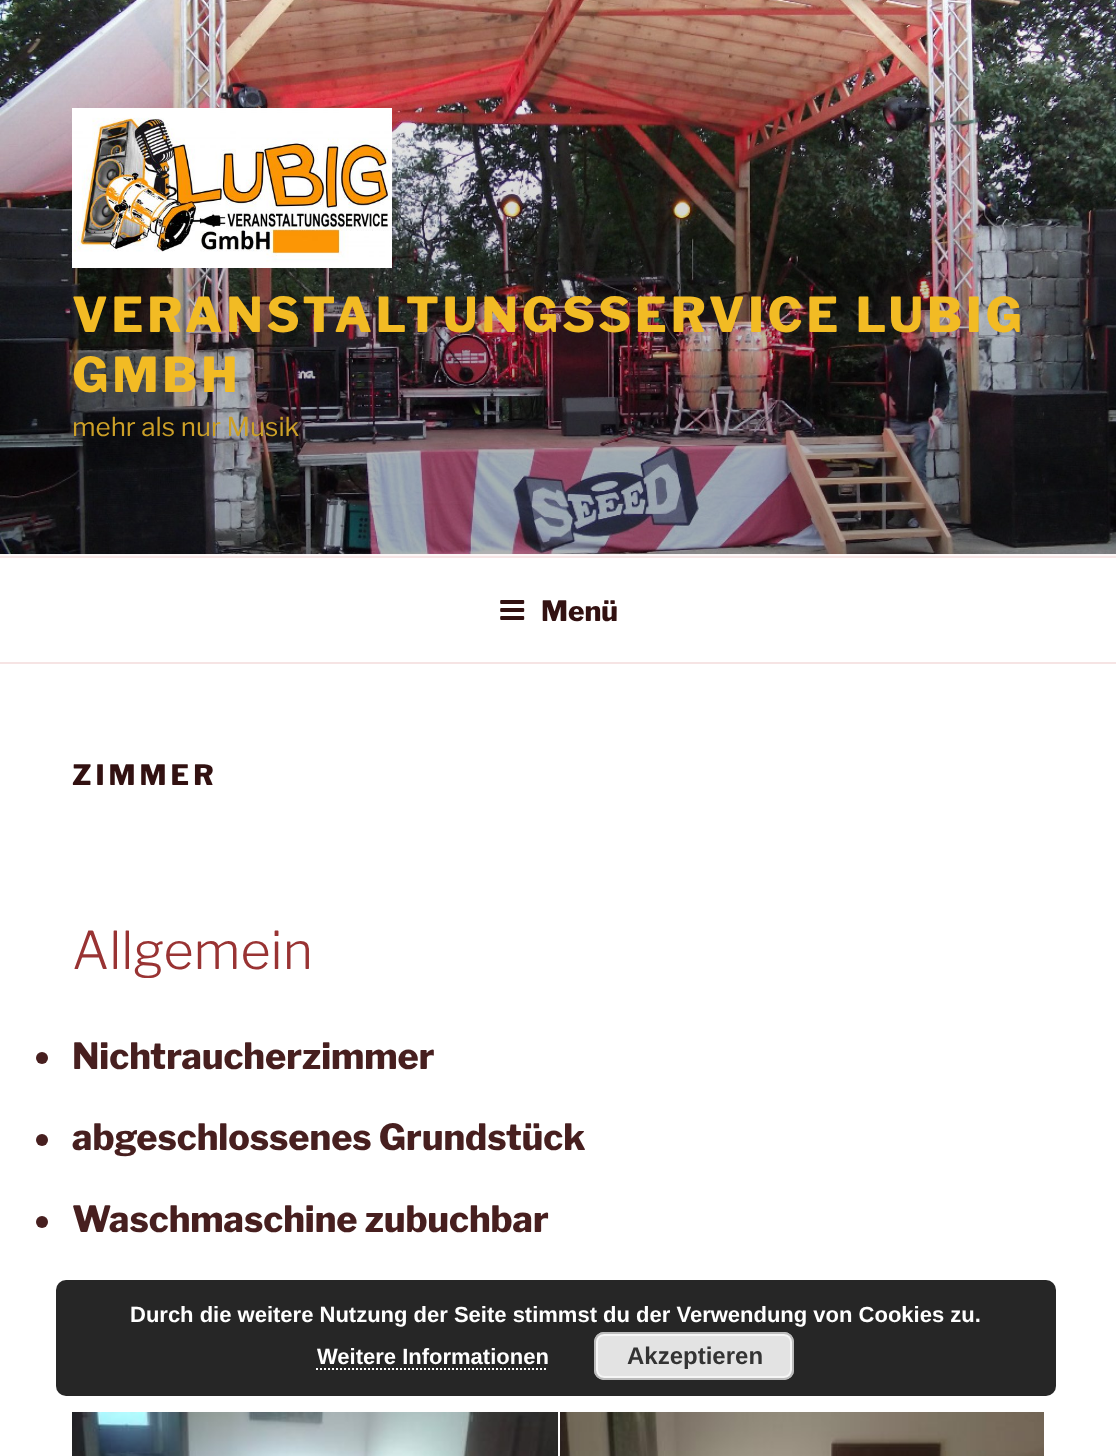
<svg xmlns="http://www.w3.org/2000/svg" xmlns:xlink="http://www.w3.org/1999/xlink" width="1116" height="1456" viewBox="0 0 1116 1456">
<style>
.cls-1{font:800 48px Libre Franklin;letter-spacing:3.85px;fill:#f2bb24}
.cls-2{font:26px Libre Franklin;fill:#cca028}
.cls-3{font:800 28px Libre Franklin;fill:#321111}
.cls-4{font:800 28px Libre Franklin;letter-spacing:4px;fill:#321111}
.cls-5{font:300 52px Libre Franklin;fill:#993333}
.cls-6{font:800 36px Libre Franklin;fill:#471f1f}
.cls-7{font:bold 22px Liberation Sans;fill:#ffffff}
.cls-8{font:bold 24px Liberation Sans;fill:#333333}
</style>
<rect width="100%" height="100%" fill="#ffffff"/>
<rect fill="#fcf7f7" x="0" y="554" width="1116" height="2"/>
<image xlink:href="image0.png" x="0" y="0" width="1116" height="554"/>
<image xlink:href="image1.png" x="72" y="108" width="320" height="160"/>
<rect fill="#f6e4e4" x="0" y="556" width="1116" height="2"/>
<rect fill="#f6e4e4" x="0" y="662" width="1116" height="2"/>
<image xlink:href="image2.png" x="500" y="600" width="25" height="20"/>
<circle fill="#471f1f" cx="42" cy="1058" r="6"/>
<circle fill="#471f1f" cx="42" cy="1140" r="6"/>
<circle fill="#471f1f" cx="42" cy="1222" r="6"/>
<image xlink:href="image3.png" x="72" y="1412" width="486" height="44"/>
<image xlink:href="image4.png" x="560" y="1412" width="484" height="44"/>
<rect fill="#262626" x="56" y="1280" width="1000" height="116" rx="10"/>
<path fill="none" stroke="#ffffff" stroke-width="2" stroke-dasharray="2 2" d="M316 1369H548"/>
<rect fill="#e3e3e3" x="594" y="1332" width="200" height="48" rx="10"/>
<rect fill="none" stroke="#f6f6f6" stroke-width="2" x="597" y="1335" width="194" height="42" rx="7"/>
<rect fill="none" stroke="#bbbbbb" stroke-width="2" x="595" y="1333" width="198" height="46" rx="9"/>
<text class="cls-1"><tspan x="72" y="332">VERANSTALTUNGSSERVICE LUBIG</tspan><tspan x="72" y="392">GMBH</tspan></text>
<text class="cls-2" x="72" y="436">mehr als nur Musik</text>
<text class="cls-3" x="541" y="621">Menü</text>
<text class="cls-4" x="72" y="785">ZIMMER</text>
<text class="cls-5" x="72" y="969">Allgemein</text>
<text class="cls-6" x="72" y="1069">Nichtraucherzimmer</text>
<text class="cls-6" x="72" y="1150">abgeschlossenes Grundstück</text>
<text class="cls-6" x="72" y="1232">Waschmaschine zubuchbar</text>
<text class="cls-7" x="130" y="1322">Durch die weitere Nutzung der Seite stimmst du der Verwendung von Cookies zu.</text>
<text class="cls-7" x="317" y="1364">Weitere Informationen</text>
<text class="cls-8" x="627" y="1364">Akzeptieren</text>
</svg>
